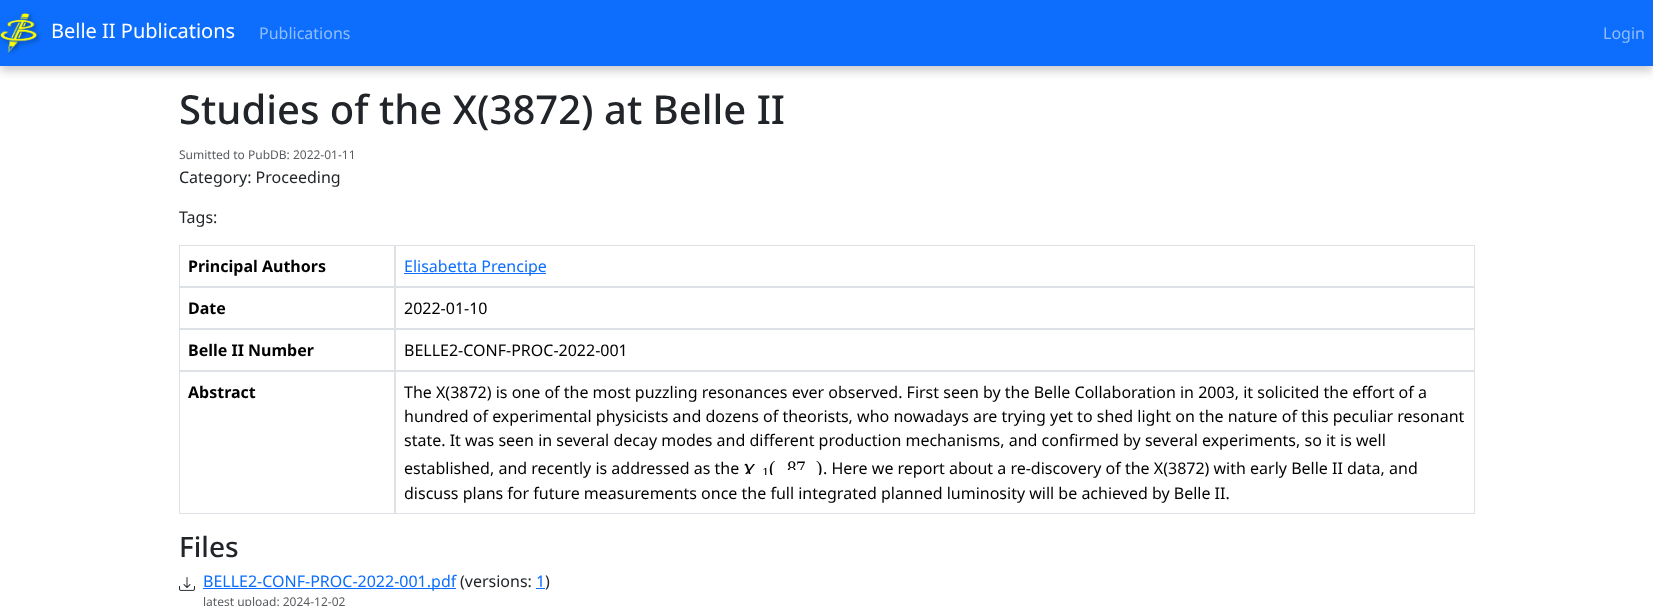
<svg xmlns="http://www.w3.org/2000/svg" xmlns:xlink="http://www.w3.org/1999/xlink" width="1653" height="606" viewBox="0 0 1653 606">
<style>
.cls-1{font:20px Noto Sans;fill:#ffffff}
.cls-2{font:16px Noto Sans;fill:#92befe}
.cls-3{font:500 40px Noto Sans;fill:#212529}
.cls-4{font:12px Noto Sans;fill:#595c5f}
.cls-5{font:16px Noto Sans;fill:#212529}
.cls-6{font:bold 16px Noto Sans;fill:#000000}
.cls-7{font:16px Noto Sans;fill:#0d6efd}
.cls-8{font:16px Noto Sans;fill:#000000}
.cls-9{font:19px FreeSans;fill:#000000}
.cls-10{font:14px Liberation Serif;fill:#000000}
.cls-11{font:19px Liberation Serif;fill:#000000}
.cls-12{font:500 28px Noto Sans;fill:#212529}
</style>
<defs>
<clipPath id="clip1"><rect x="723" y="457" width="51" height="17"/></clipPath>
<clipPath id="clip2"><rect x="748" y="462" width="34" height="13"/></clipPath>
<clipPath id="clip3"><rect x="750" y="451" width="46" height="24"/></clipPath>
<clipPath id="clip4"><rect x="767" y="453" width="49" height="17"/></clipPath>
<clipPath id="clip5"><rect x="777" y="453" width="48" height="17"/></clipPath>
<clipPath id="clip6"><rect x="796" y="451" width="47" height="24"/></clipPath>
</defs>
<rect width="100%" height="100%" fill="#ffffff"/>
<rect fill="#010101" fill-opacity="0.2" filter="blur(5px)" x="0" y="5" width="1653" height="66"/>
<rect fill="#0d6efd" x="0" y="0" width="1653" height="66"/>
<image xlink:href="image0.png" x="0" y="12" width="41" height="43"/>
<rect fill="#dee2e6" x="179" y="245" width="1296" height="1"/>
<rect fill="#dee2e6" x="179" y="286" width="1296" height="2"/>
<rect fill="#dee2e6" x="394" y="246" width="2" height="40"/>
<rect fill="#dee2e6" x="179" y="246" width="1" height="40"/>
<rect fill="#dee2e6" x="1474" y="246" width="1" height="40"/>
<rect fill="#0d6efd" x="404" y="273" width="142" height="1"/>
<rect fill="#dee2e6" x="179" y="328" width="1296" height="2"/>
<rect fill="#dee2e6" x="394" y="288" width="2" height="40"/>
<rect fill="#dee2e6" x="179" y="288" width="1" height="40"/>
<rect fill="#dee2e6" x="1474" y="288" width="1" height="40"/>
<rect fill="#dee2e6" x="179" y="370" width="1296" height="2"/>
<rect fill="#dee2e6" x="394" y="330" width="2" height="40"/>
<rect fill="#dee2e6" x="179" y="330" width="1" height="40"/>
<rect fill="#dee2e6" x="1474" y="330" width="1" height="40"/>
<rect fill="#dee2e6" x="179" y="513" width="1296" height="1"/>
<rect fill="#dee2e6" x="394" y="372" width="2" height="141"/>
<rect fill="#dee2e6" x="179" y="372" width="1" height="141"/>
<rect fill="#dee2e6" x="1474" y="372" width="1" height="141"/>
<image xlink:href="image1.png" x="179" y="577" width="16" height="14"/>
<rect fill="#0d6efd" x="203" y="588" width="253" height="1"/>
<rect fill="#0d6efd" x="536" y="588" width="9" height="1"/>
<text class="cls-1" x="51" y="38">Belle II Publications</text>
<text class="cls-2" x="259" y="39">Publications</text>
<text class="cls-2" x="1603" y="39">Login</text>
<text class="cls-3" x="179" y="124">Studies of the X(3872) at Belle II</text>
<text class="cls-4" x="179" y="159">Sumitted to PubDB: 2022-01-11</text>
<text class="cls-5" x="179" y="183">Category: Proceeding</text>
<text class="cls-5" x="179" y="223">Tags:</text>
<text class="cls-6" x="188" y="272">Principal Authors</text>
<text class="cls-7" x="404" y="272">Elisabetta Prencipe</text>
<text class="cls-6" x="188" y="314">Date</text>
<text class="cls-8" x="404" y="314">2022-01-10</text>
<text class="cls-6" x="188" y="356">Belle II Number</text>
<text class="cls-8" x="404" y="356">BELLE2-CONF-PROC-2022-001</text>
<text class="cls-6" x="188" y="398">Abstract</text>
<text class="cls-8"><tspan x="404" y="398">The X(3872) is one of the most puzzling resonances ever observed. First seen by the Belle Collaboration in 2003, it solicited the effort of a</tspan><tspan x="404" y="422">hundred of experimental physicists and dozens of theorists, who nowadays are trying yet to shed light on the nature of this peculiar resonant</tspan><tspan x="404" y="446">state. It was seen in several decay modes and different production mechanisms, and confirmed by several experiments, so it is well</tspan><tspan x="404" y="474">established, and recently is addressed as the</tspan></text>
<g clip-path="url(#clip1)">
<text class="cls-9" x="743" y="474">𝜒</text>
</g>
<g clip-path="url(#clip2)">
<text class="cls-10" x="762" y="477">1</text>
</g>
<g clip-path="url(#clip3)">
<text class="cls-11" x="769" y="474">(</text>
</g>
<g clip-path="url(#clip4)">
<text class="cls-11" x="787" y="474">8</text>
</g>
<g clip-path="url(#clip5)">
<text class="cls-11" x="796" y="474">7</text>
</g>
<g clip-path="url(#clip6)">
<text class="cls-11" x="816" y="474">)</text>
</g>
<text class="cls-8" x="823" y="474">. Here we report about a re-discovery of the X(3872) with early Belle II data, and</text>
<text class="cls-8" x="404" y="499">discuss plans for future measurements once the full integrated planned luminosity will be achieved by Belle II.</text>
<text class="cls-12" x="179" y="557">Files</text>
<text class="cls-7" x="203" y="587">BELLE2-CONF-PROC-2022-001.pdf</text>
<text class="cls-5" x="460" y="587">(versions:</text>
<text class="cls-7" x="536" y="587">1</text>
<text class="cls-5" x="545" y="587">)</text>
<text class="cls-4" x="203" y="606">latest upload: 2024-12-02</text>
</svg>
